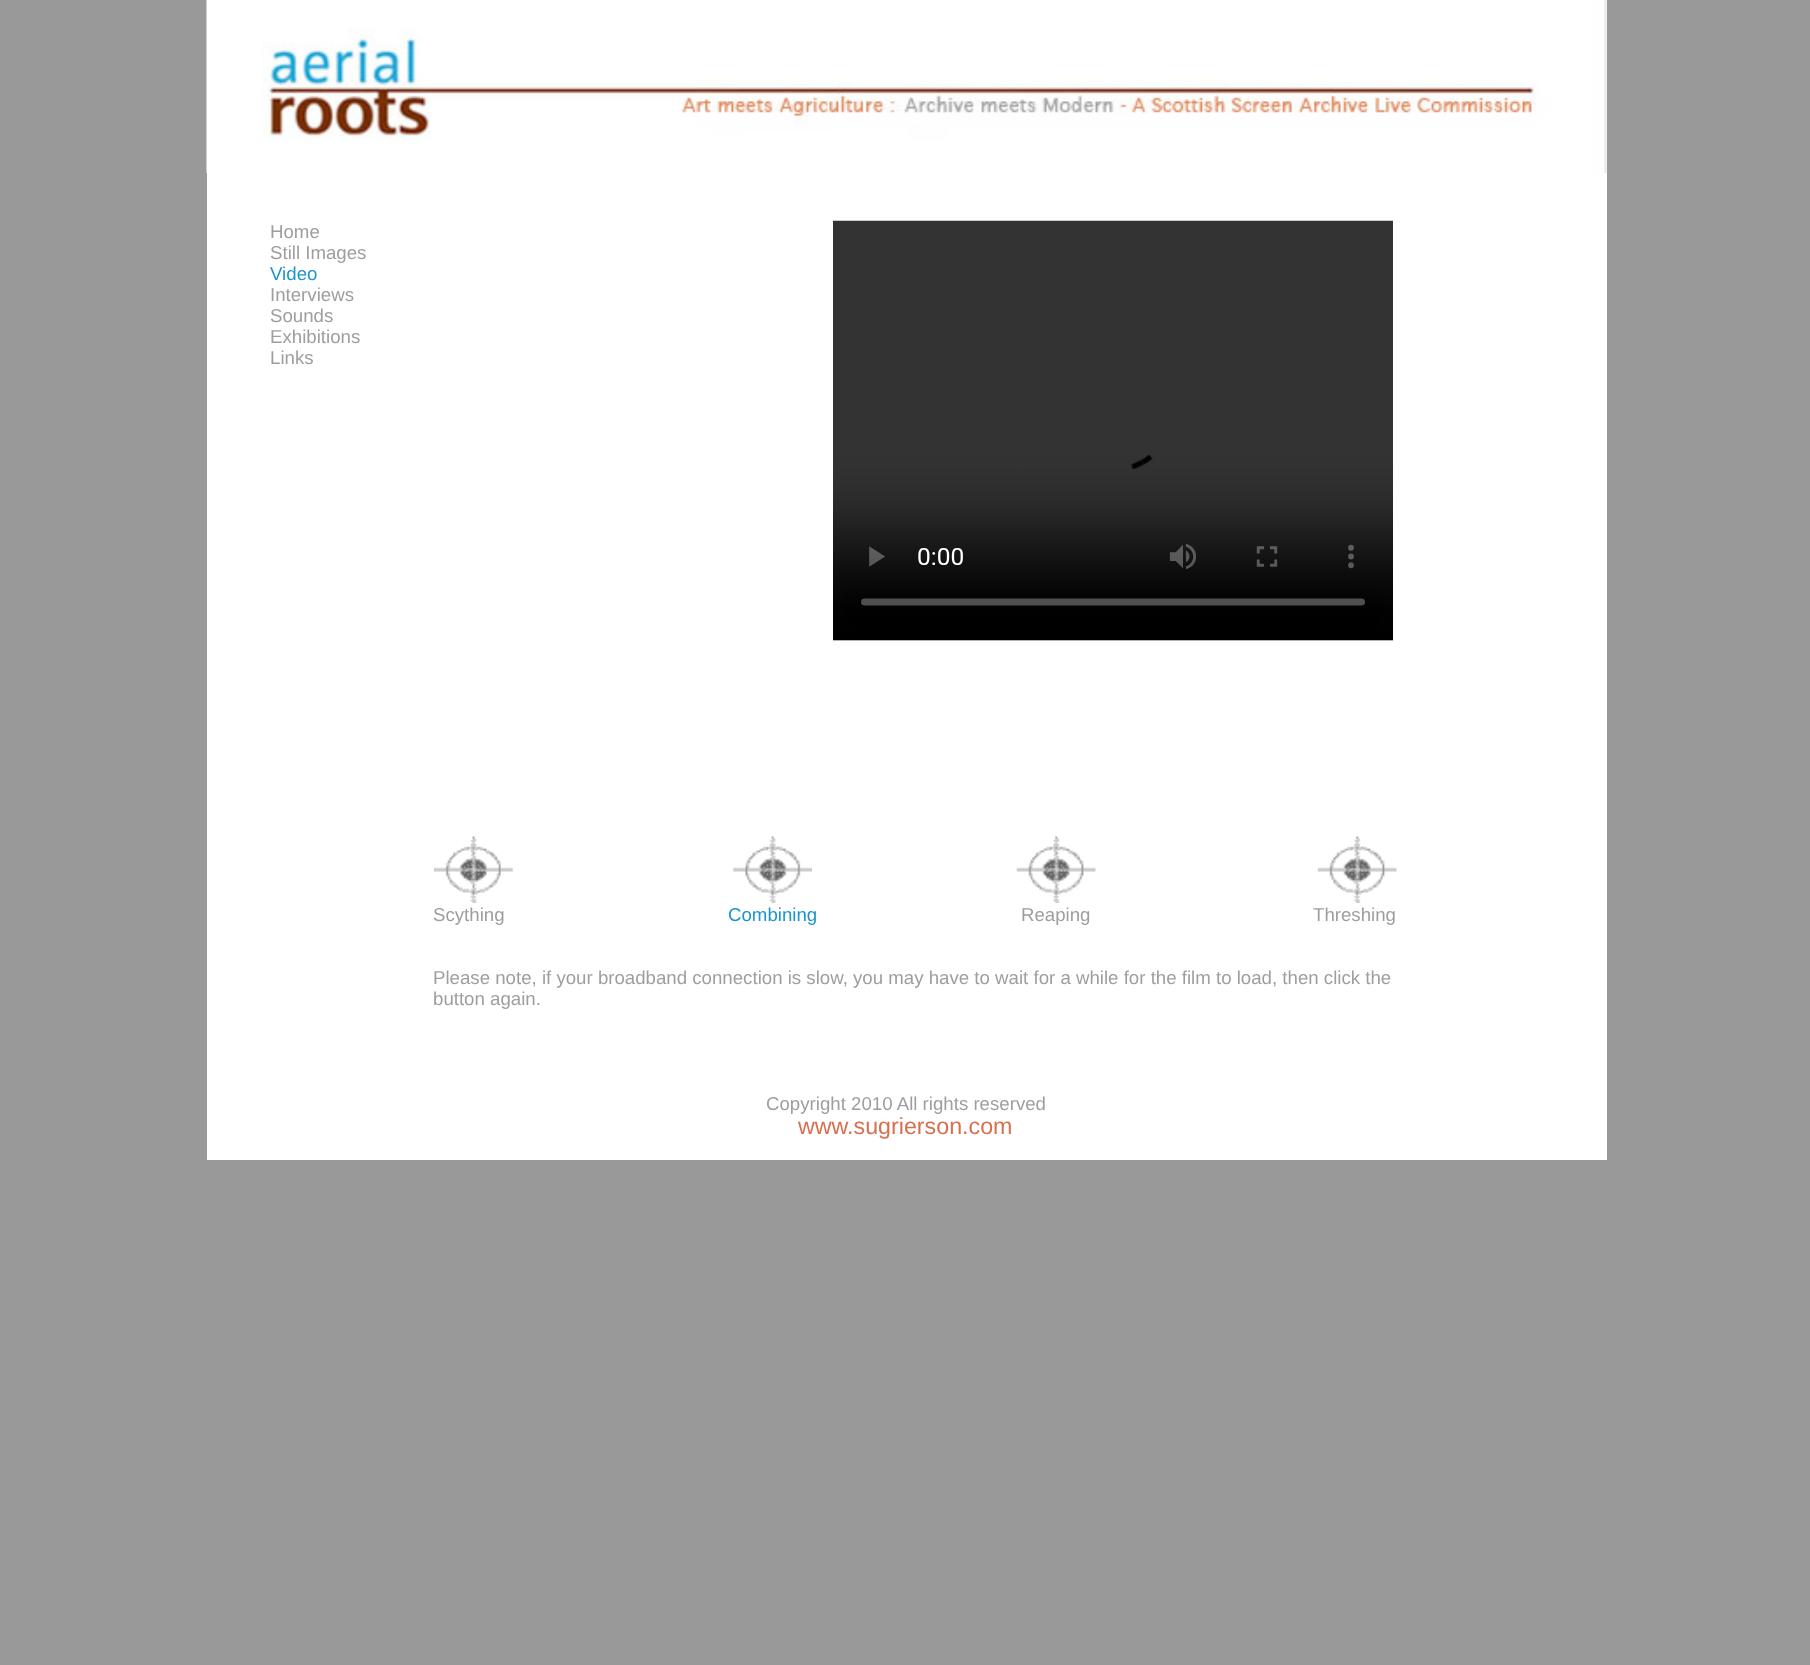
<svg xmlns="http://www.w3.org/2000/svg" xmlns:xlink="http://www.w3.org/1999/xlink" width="1810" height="1665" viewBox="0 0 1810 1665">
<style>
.cls-1{font:18.67px Liberation Sans;fill:#9e9e9e}
.cls-2{font:18.67px Liberation Sans;fill:#1c95ce}
.cls-3{font:23.25px Liberation Sans;fill:#d86f4f}
</style>
<rect width="100%" height="100%" fill="#999999"/>
<rect fill="#ffffff" x="207" y="0" width="1400" height="1160"/>
<image xlink:href="image0.png" x="206" y="0" width="1401" height="174"/>
<image xlink:href="image1.png" x="833" y="220" width="560" height="421"/>
<image xlink:href="image2.png" x="434" y="836" width="79" height="67"/>
<image xlink:href="image3.png" x="733" y="836" width="79" height="67"/>
<image xlink:href="image4.png" x="1016" y="836" width="80" height="67"/>
<image xlink:href="image4.png" x="1317" y="836" width="80" height="67"/>
<text class="cls-1"><tspan x="270" y="238">Home</tspan><tspan x="270" y="259">Still Images</tspan></text>
<text class="cls-2" x="270" y="280">Video</text>
<text class="cls-1"><tspan x="270" y="301">Interviews</tspan><tspan x="270" y="322">Sounds</tspan><tspan x="270" y="343">Exhibitions</tspan><tspan x="270" y="364">Links</tspan></text>
<text class="cls-1" x="433" y="921">Scything</text>
<text class="cls-2" x="728" y="921">Combining</text>
<text class="cls-1" x="1021" y="921">Reaping</text>
<text class="cls-1" x="1313" y="921">Threshing</text>
<text class="cls-1"><tspan x="433" y="984">Please note, if your broadband connection is slow, you may have to wait for a while for the film to load, then click the</tspan><tspan x="433" y="1005">button again.</tspan></text>
<text class="cls-1" x="766" y="1110">Copyright 2010 All rights reserved</text>
<text class="cls-3" x="798" y="1134">www.sugrierson.com</text>
</svg>
